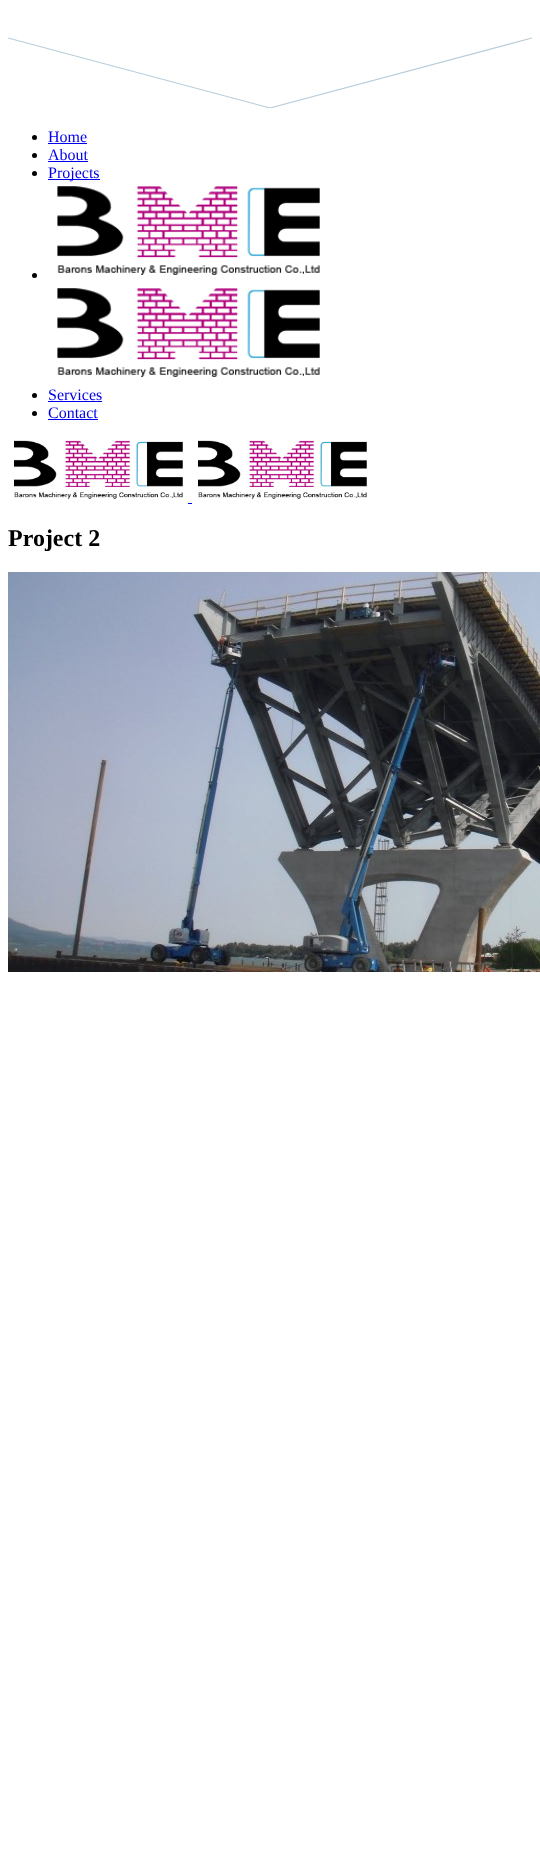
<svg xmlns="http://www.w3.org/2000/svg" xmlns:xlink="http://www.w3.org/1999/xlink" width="540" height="1857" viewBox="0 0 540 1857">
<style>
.cls-1{font:16px Liberation Serif;fill:#0000ee}
.cls-2{font:bold 24px Liberation Serif;fill:#000000}
</style>
<defs>
<clipPath id="clip1"><rect x="8" y="8" width="524" height="100"/></clipPath>
</defs>
<rect width="100%" height="100%" fill="#ffffff"/>
<g clip-path="url(#clip1)">
<path fill="none" stroke="#b5cbd9" stroke-width="1.1" d="M8 38L270 108L532 38"/>
</g>
<circle fill="#000000" cx="34.5" cy="137.5" r="2.5"/>
<rect fill="#0000ee" x="48" y="143" width="39" height="1"/>
<circle fill="#000000" cx="34.5" cy="155.5" r="2.5"/>
<rect fill="#0000ee" x="48" y="161" width="40" height="1"/>
<circle fill="#000000" cx="34.5" cy="173.5" r="2.5"/>
<rect fill="#0000ee" x="48" y="179" width="52" height="1"/>
<image xlink:href="image0.png" x="57" y="186" width="263" height="89"/>
<circle fill="#000000" cx="34.5" cy="275.5" r="2.5"/>
<image xlink:href="image0.png" x="57" y="288" width="263" height="89"/>
<circle fill="#000000" cx="34.5" cy="395.5" r="2.5"/>
<rect fill="#0000ee" x="48" y="401" width="54" height="1"/>
<circle fill="#000000" cx="34.5" cy="413.5" r="2.5"/>
<rect fill="#0000ee" x="48" y="419" width="50" height="1"/>
<image xlink:href="image1.png" x="14" y="440" width="169" height="59"/>
<image xlink:href="image2.png" x="198" y="440" width="169" height="59"/>
<rect fill="#0000ee" x="188" y="503" width="4" height="1"/>
<image xlink:href="image3.png" x="8" y="572" width="532" height="400"/>
<text class="cls-1"><tspan x="48" y="142">Home</tspan><tspan x="48" y="160">About</tspan><tspan x="48" y="178">Projects</tspan></text>
<text class="cls-1"><tspan x="48" y="400">Services</tspan><tspan x="48" y="418">Contact</tspan></text>
<text class="cls-2" x="8" y="546">Project 2</text>
</svg>
